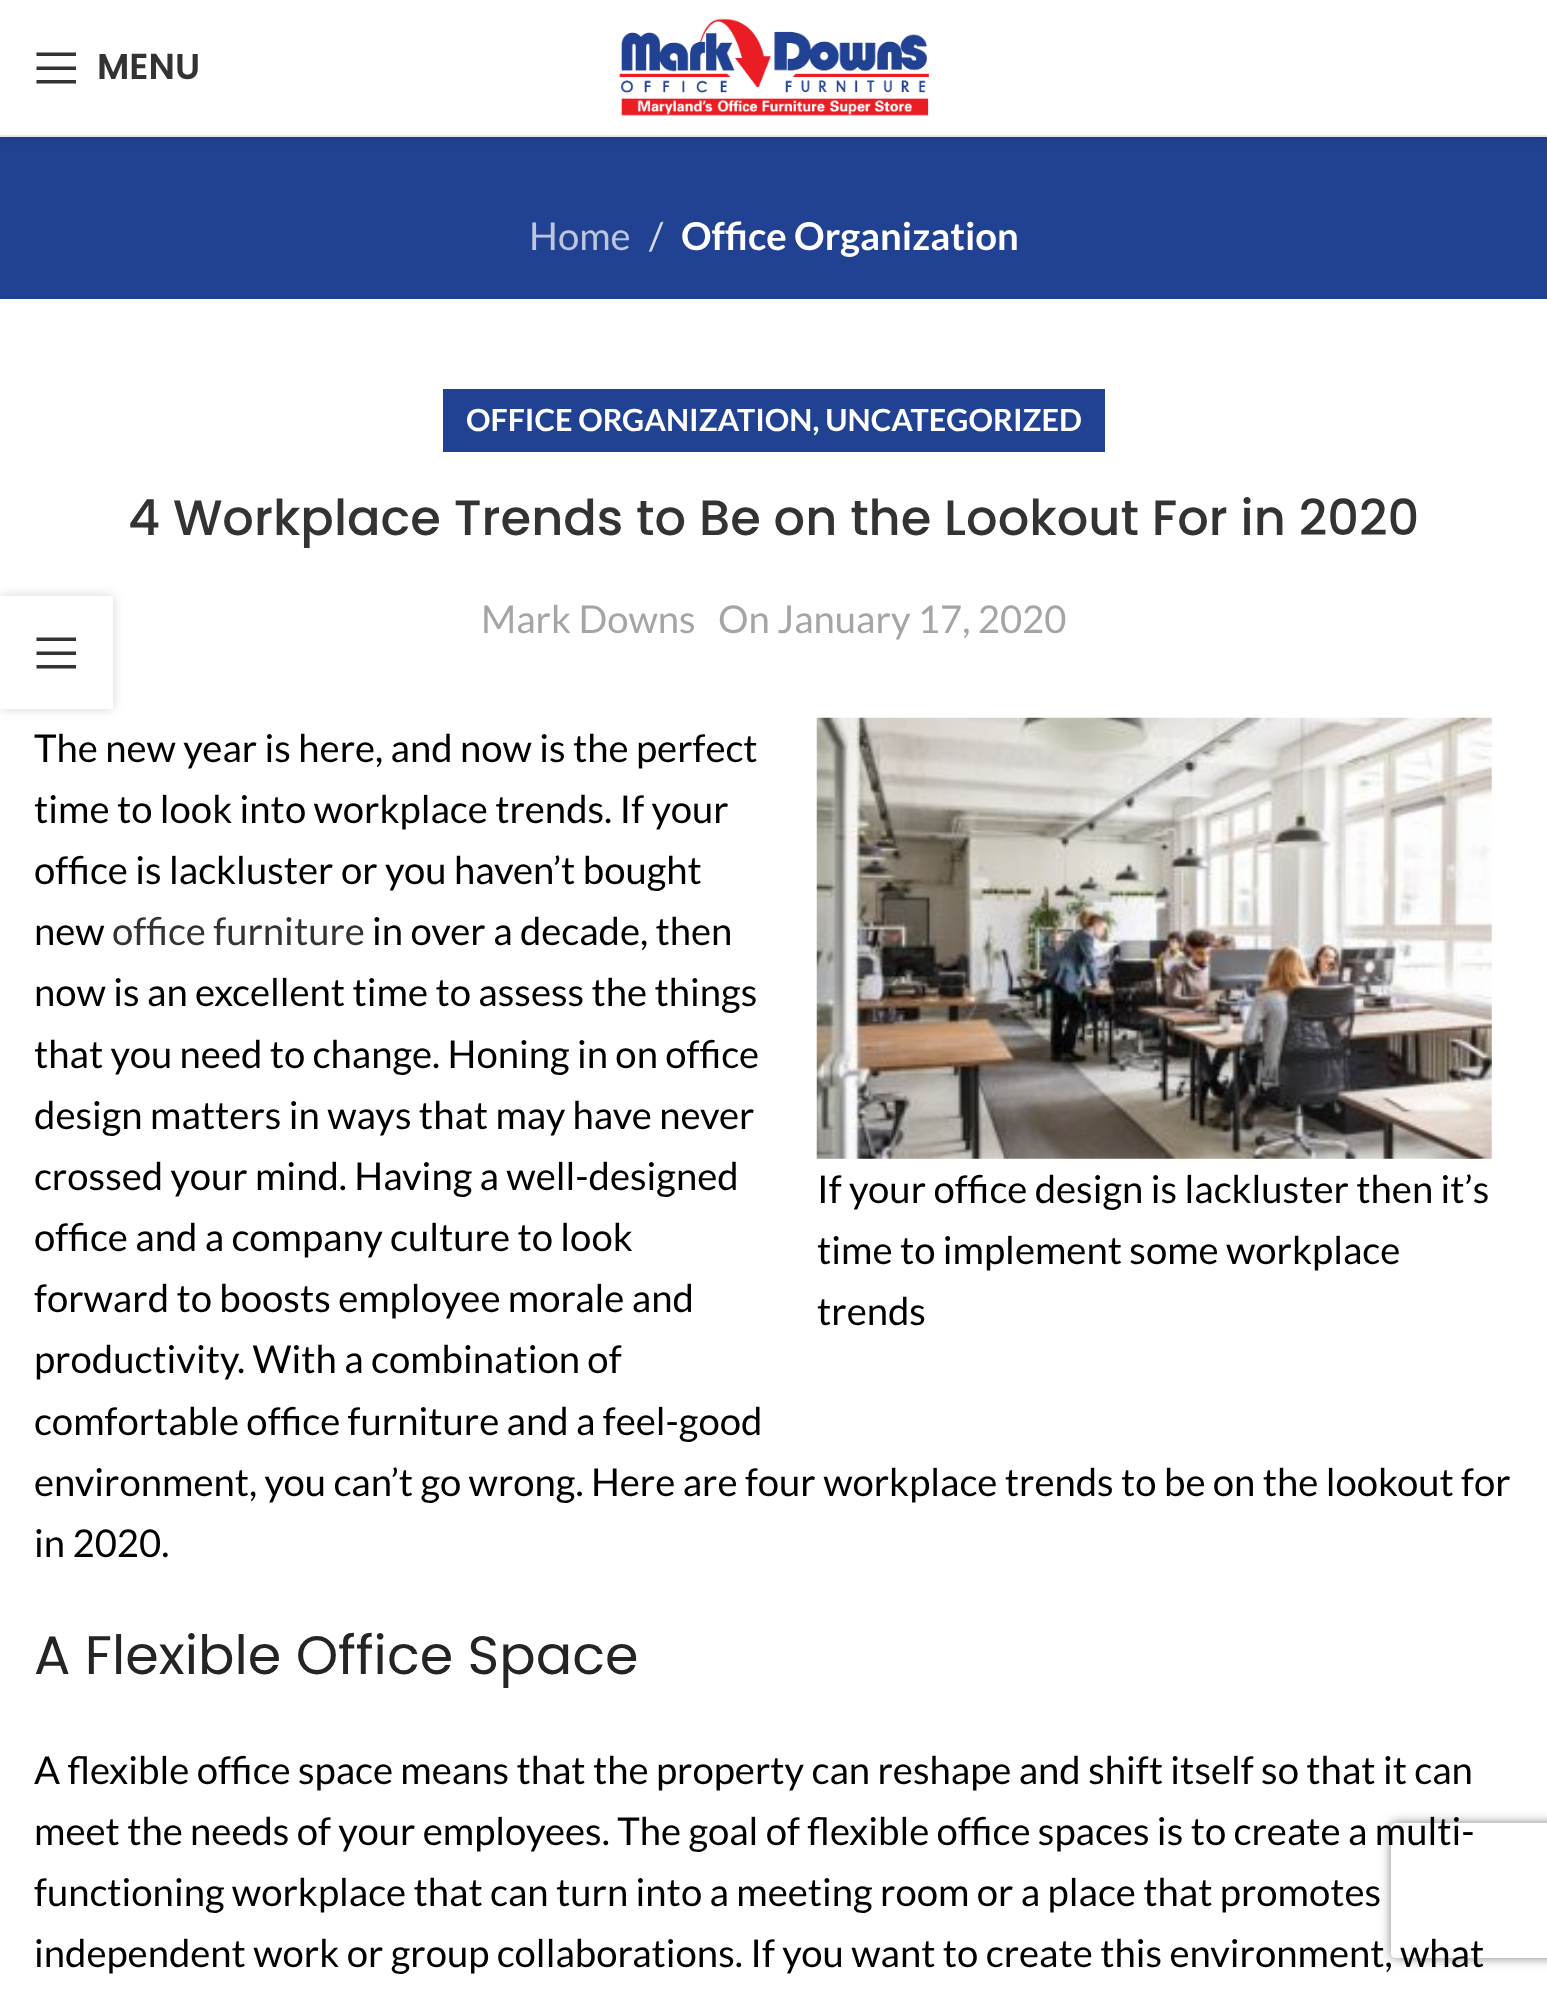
<svg xmlns="http://www.w3.org/2000/svg" xmlns:xlink="http://www.w3.org/1999/xlink" width="1547" height="1989" viewBox="0 0 1547 1989">
<style>
.cls-1{font:600 36px Poppins;fill:#333333}
.cls-2{font:38.25px Lato;fill:#bcc6df}
.cls-3{font:38.25px Lato;fill:#d3d9e9}
.cls-4{font:bold 38.25px Lato;fill:#ffffff}
.cls-5{font:bold 30.6px Lato;fill:#ffffff}
.cls-6{font:500 49.5px Poppins;fill:#333333}
.cls-7{font:38.25px Lato;fill:#a5a5a5}
.cls-8{font:38.25px Lato;fill:#000000}
.cls-9{font:38.25px Lato;fill:#333333}
.cls-10{font:54px Poppins;fill:#242424}
</style>
<defs>
<clipPath id="clip1"><path d="M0 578H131V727H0ZM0 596H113V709H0Z" clip-rule="evenodd"/></clipPath>
<clipPath id="clip2"><path d="M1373 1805H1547V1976H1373ZM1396 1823H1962C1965 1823 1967 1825 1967 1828V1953C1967 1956 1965 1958 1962 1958H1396C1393 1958 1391 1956 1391 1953V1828C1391 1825 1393 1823 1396 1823Z" clip-rule="evenodd"/></clipPath>
</defs>
<rect width="100%" height="100%" fill="#ffffff"/>
<rect fill="#214293" x="0" y="137" width="1547" height="162"/>
<rect fill="#000000" fill-opacity="0.1" filter="blur(3.5px)" x="0" y="2" width="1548" height="138"/>
<rect fill="#ffffff" x="0" y="0" width="1547" height="135"/>
<rect fill="#e8e8e8" x="0" y="135" width="1547" height="2"/>
<path fill="#333333" d="M36.5 56H76V52.5H36.5ZM36.5 70H76V66.5H36.5ZM36.5 83.5H76V80H36.5Z"/>
<image xlink:href="image0.png" x="619" y="18" width="310" height="98"/>
<rect fill="#214293" x="443" y="389" width="662" height="63"/>
<image xlink:href="image1.png" x="816" y="717" width="676" height="442"/>
<g clip-path="url(#clip1)">
<rect fill="#000000" fill-opacity="0.17" filter="blur(5.5px)" x="0" y="596" width="113" height="113"/>
</g>
<rect fill="#ffffff" fill-opacity="0.9" x="0" y="596" width="113" height="113"/>
<path fill="#333333" d="M36.5 641H76V637.5H36.5ZM36.5 655H76V651.5H36.5ZM36.5 668.5H76V665H36.5Z"/>
<g clip-path="url(#clip2)">
<rect fill="#808080" filter="blur(5.5px)" x="1391" y="1823" width="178" height="135" rx="5"/>
</g>
<text class="cls-1" x="97" y="79">MENU</text>
<text class="cls-2" x="529" y="250">Home</text>
<text class="cls-3" x="649" y="250">/</text>
<text class="cls-4" x="681" y="250">Office Organization</text>
<text class="cls-5" x="466" y="431">OFFICE ORGANIZATION, UNCATEGORIZED</text>
<text class="cls-6" x="128" y="535">4 Workplace Trends to Be on the Lookout For in 2020</text>
<text class="cls-7" x="481" y="633">Mark Downs</text>
<text class="cls-7" x="718" y="633">On January 17, 2020</text>
<text class="cls-8"><tspan x="34" y="762">The new year is here, and now is the perfect</tspan><tspan x="34" y="823">time to look into workplace trends. If your</tspan><tspan x="34" y="884">office is lackluster or you haven’t bought</tspan><tspan x="34" y="945">new</tspan></text>
<text class="cls-9" x="112" y="945">office furniture</text>
<text class="cls-8" x="372" y="945">in over a decade, then</text>
<text class="cls-8"><tspan x="34" y="1006">now is an excellent time to assess the things</tspan><tspan x="34" y="1068">that you need to change. Honing in on office</tspan><tspan x="34" y="1129">design matters in ways that may have never</tspan><tspan x="34" y="1190">crossed your mind. Having a well-designed</tspan><tspan x="34" y="1251">office and a company culture to look</tspan><tspan x="34" y="1312">forward to boosts employee morale and</tspan><tspan x="34" y="1373">productivity. With a combination of</tspan><tspan x="34" y="1435">comfortable office furniture and a feel-good</tspan><tspan x="34" y="1496">environment, you can’t go wrong. Here are four workplace trends to be on the lookout for</tspan><tspan x="34" y="1557">in 2020.</tspan></text>
<text class="cls-8"><tspan x="817" y="1203">If your office design is lackluster then it’s</tspan><tspan x="817" y="1264">time to implement some workplace</tspan><tspan x="817" y="1325">trends</tspan></text>
<text class="cls-10" x="34" y="1674">A Flexible Office Space</text>
<text class="cls-8"><tspan x="34" y="1784">A flexible office space means that the property can reshape and shift itself so that it can</tspan><tspan x="34" y="1845">meet the needs of your employees. The goal of flexible office spaces is to create a multi-</tspan><tspan x="34" y="1906">functioning workplace that can turn into a meeting room or a place that promotes</tspan><tspan x="34" y="1967">independent work or group collaborations. If you want to create this environment, what</tspan></text>
</svg>
